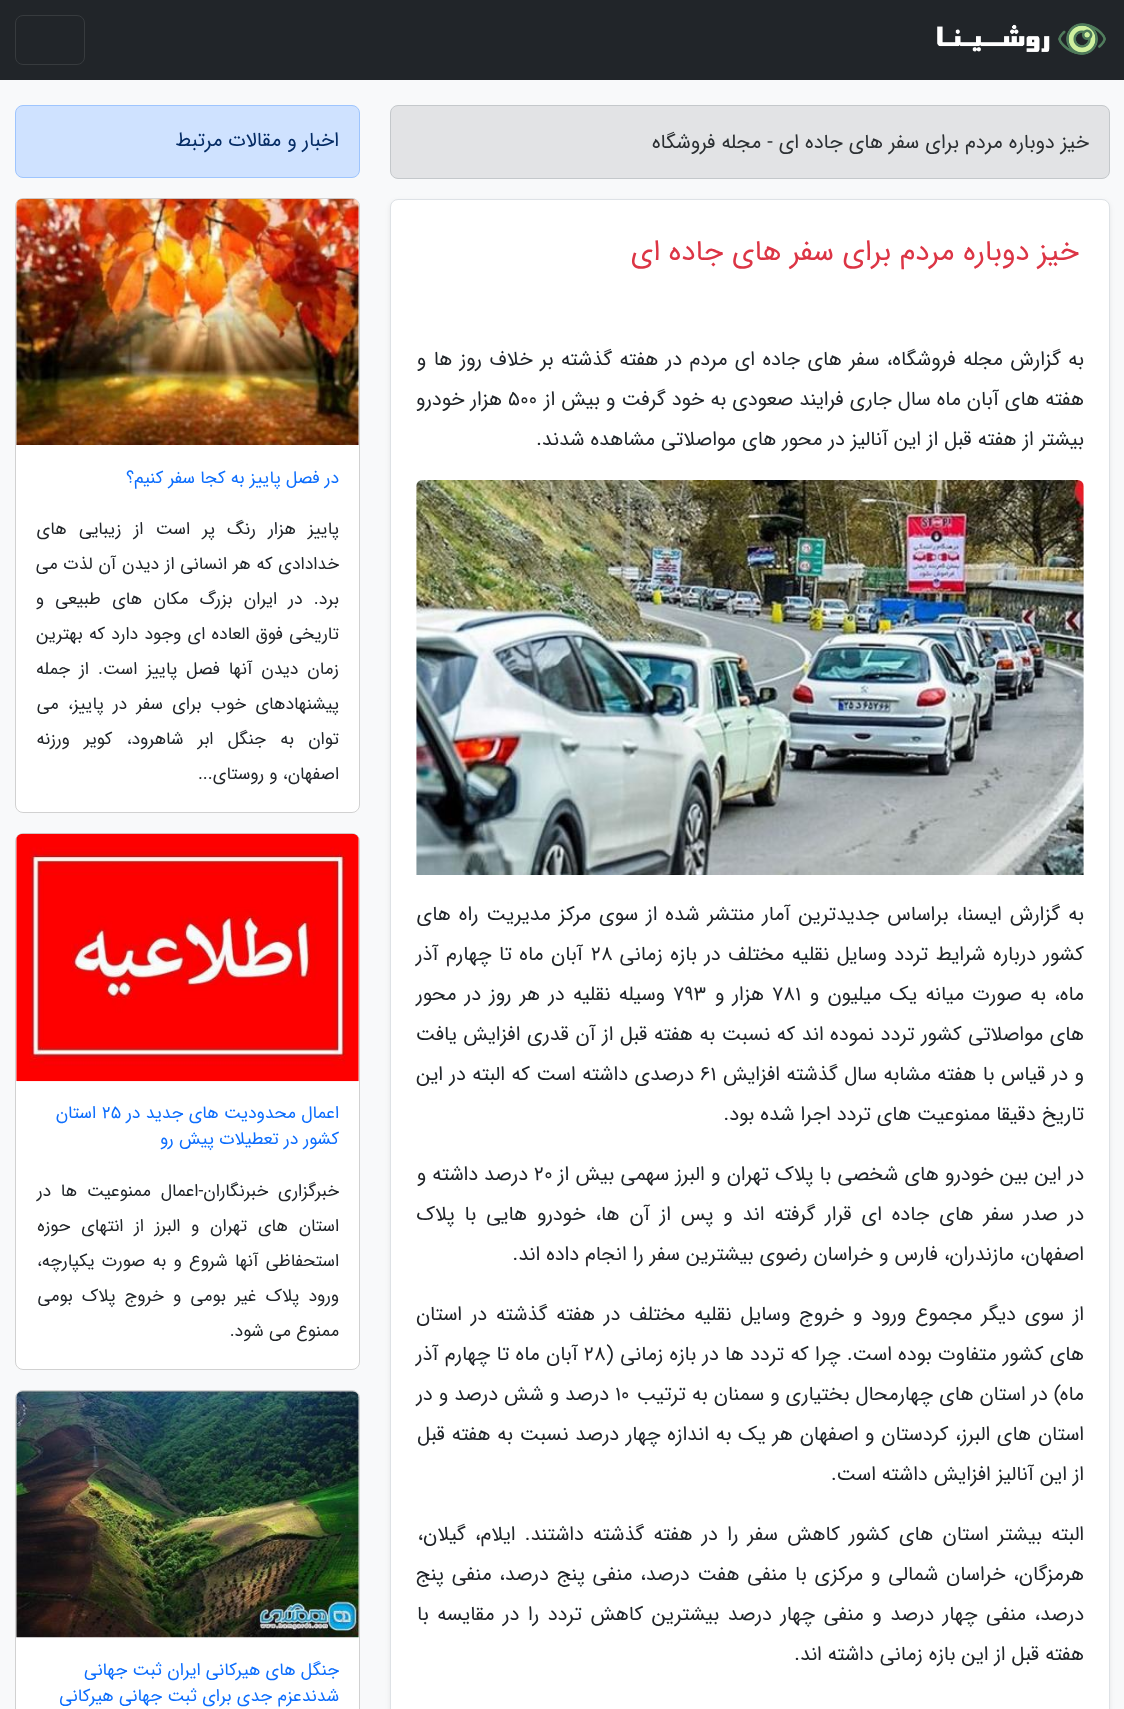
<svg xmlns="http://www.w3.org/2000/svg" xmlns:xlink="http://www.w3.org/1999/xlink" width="1124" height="1709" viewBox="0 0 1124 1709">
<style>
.cls-1{font:20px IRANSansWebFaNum;direction:rtl;fill:#2b2f32}
.cls-2{font:28.9px IRANSansWebFaNum;direction:rtl;fill:#dc3545}
.cls-3{font:20px IRANSansWebFaNum;direction:rtl;fill:#212529}
.cls-4{font:20px IRANSansWebFaNum;fill:#212529}
.cls-5{font:20px IRANSansWebFaNum;direction:rtl;fill:#052c65}
.cls-6{font:17.5px IRANSansWebFaNum;direction:rtl;fill:#0d6efd}
.cls-7{font:17.5px IRANSansWebFaNum;direction:rtl;fill:#212529}
.cls-8{font:17.5px IRANSansWebFaNum;fill:#0d6efd}
</style>
<rect width="100%" height="100%" fill="#f8f9fa"/>
<rect fill="#212529" x="0" y="0" width="1124" height="80"/>
<image xlink:href="image0.png" x="937" y="23" width="169" height="32"/>
<rect fill="none" stroke="#373b3e" x="15.5" y="15.5" width="69" height="49" rx="7.5"/>
<rect fill="#e2e3e5" stroke="#c4c8cb" x="390.5" y="105.5" width="719" height="73" rx="7.5"/>
<rect fill="#000000" fill-opacity="0.07" filter="blur(2.5px)" x="390" y="201" width="720" height="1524" rx="8"/>
<rect fill="#ffffff" stroke="#dee2e6" x="390.5" y="199.5" width="719" height="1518" rx="7.5"/>
<image xlink:href="image1.png" x="416" y="480" width="668" height="395"/>
<rect fill="#cfe2ff" stroke="#9ec5fe" x="15.5" y="105.5" width="344" height="72" rx="7.5"/>
<rect fill="#ffffff" x="15" y="198" width="345" height="615" rx="8"/>
<rect fill="none" stroke="#000000" stroke-opacity="0.18" x="15.5" y="198.5" width="344" height="614" rx="7.5"/>
<image xlink:href="image2.png" x="16" y="198" width="343" height="247"/>
<rect fill="#ffffff" x="15" y="833" width="345" height="537" rx="8"/>
<rect fill="none" stroke="#000000" stroke-opacity="0.18" x="15.5" y="833.5" width="344" height="536" rx="7.5"/>
<image xlink:href="image3.png" x="16" y="833" width="343" height="249"/>
<rect fill="#ffffff" x="15" y="1390" width="345" height="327" rx="8"/>
<rect fill="none" stroke="#000000" stroke-opacity="0.18" x="15.5" y="1390.5" width="344" height="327" rx="7.5"/>
<image xlink:href="image4.png" x="16" y="1391" width="343" height="247"/>
<text class="cls-1" x="1089" y="148">خیز دوباره مردم برای سفر های جاده ای - مجله فروشگاه</text>
<text class="cls-2" x="1079" y="260">خیز دوباره مردم برای سفر های جاده ای</text>
<text class="cls-3" x="1084" y="365" word-spacing="1.4">به گزارش مجله فروشگاه، سفر های جاده ای مردم در هفته گذشته بر خلاف روز ها و</text>
<text class="cls-3" x="1084" y="405">هفته های آبان ماه سال جاری فرایند صعودی به خود گرفت و بیش از</text>
<text class="cls-4" x="508" y="405">500</text>
<text class="cls-3" x="502" y="405">هزار خودرو</text>
<text class="cls-3" x="1084" y="445">بیشتر از هفته قبل از این آنالیز در محور های مواصلاتی مشاهده شدند.</text>
<text class="cls-3" x="1084" y="920" word-spacing="2">به گزارش ایسنا، براساس جدیدترین آمار منتشر شده از سوی مرکز مدیریت راه های</text>
<text class="cls-3" x="1084" y="960" word-spacing="1.5">کشور درباره شرایط تردد وسایل نقلیه مختلف در بازه زمانی</text>
<text class="cls-4" x="591" y="960">28</text>
<text class="cls-3" x="583" y="960" word-spacing="1.5">آبان ماه تا چهارم آذر</text>
<text class="cls-3" x="1084" y="1000" word-spacing="2.25">ماه، به صورت میانه یک میلیون و</text>
<text class="cls-4" x="772" y="1000">781</text>
<text class="cls-3" x="764" y="1000" word-spacing="2.25">هزار و</text>
<text class="cls-4" x="673" y="1000">793</text>
<text class="cls-3" x="665" y="1000" word-spacing="2.25">وسیله نقلیه در هر روز در محور</text>
<text class="cls-3" x="1084" y="1040" word-spacing="0.5">های مواصلاتی کشور تردد نموده اند که نسبت به هفته قبل از آن قدری افزایش یافت</text>
<text class="cls-3" x="1084" y="1080" word-spacing="0.5">و در قیاس با هفته مشابه سال گذشته افزایش</text>
<text class="cls-4" x="700" y="1080">61</text>
<text class="cls-3" x="694" y="1080" word-spacing="0.5">درصدی داشته است که البته در این</text>
<text class="cls-3" x="1084" y="1120">تاریخ دقیقا ممنوعیت های تردد اجرا شده بود.</text>
<text class="cls-3" x="1084" y="1180" word-spacing="0.25">در این بین خودرو های شخصی با پلاک تهران و البرز سهمی بیش از</text>
<text class="cls-4" x="534" y="1180">20</text>
<text class="cls-3" x="528" y="1180">درصد داشته و</text>
<text class="cls-3" x="1084" y="1220" word-spacing="3.9">در صدر سفر های جاده ای قرار گرفته اند و پس از آن ها، خودرو هایی با پلاک</text>
<text class="cls-3" x="1084" y="1260">اصفهان، مازندران، فارس و خراسان رضوی بیشترین سفر را انجام داده اند.</text>
<text class="cls-3" x="1084" y="1320" word-spacing="2.9">از سوی دیگر مجموع ورود و خروج وسایل نقلیه مختلف در هفته گذشته در استان</text>
<text class="cls-3" x="1084" y="1360" word-spacing="0.25">های کشور متفاوت بوده است. چرا که تردد ها در بازه زمانی (</text>
<text class="cls-4" x="584" y="1360">28</text>
<text class="cls-3" x="578" y="1360" word-spacing="0.25">آبان ماه تا چهارم آذر</text>
<text class="cls-3" x="1084" y="1400">ماه) در استان های چهارمحال بختیاری و سمنان به ترتیب</text>
<text class="cls-4" x="615" y="1400">10</text>
<text class="cls-3" x="609" y="1400">درصد و شش درصد و در</text>
<text class="cls-3" x="1084" y="1440" word-spacing="0.75">استان های البرز، کردستان و اصفهان هر یک به اندازه چهار درصد نسبت به هفته قبل</text>
<text class="cls-3" x="1084" y="1480">از این آنالیز افزایش داشته است.</text>
<text class="cls-3" x="1084" y="1540" word-spacing="3.25">البته بیشتر استان های کشور کاهش سفر را در هفته گذشته داشتند. ایلام، گیلان،</text>
<text class="cls-3" x="1084" y="1580" word-spacing="1.75">هرمزگان، خراسان شمالی و مرکزی با منفی هفت درصد، منفی پنج درصد، منفی پنج</text>
<text class="cls-3" x="1084" y="1620" word-spacing="2.6">درصد، منفی چهار درصد و منفی چهار درصد بیشترین کاهش تردد را در مقایسه با</text>
<text class="cls-3" x="1084" y="1660">هفته قبل از این بازه زمانی داشته اند.</text>
<text class="cls-5" x="339" y="146">اخبار و مقالات مرتبط</text>
<text class="cls-6" x="339" y="483">در فصل پاییز به کجا سفر کنیم؟</text>
<text class="cls-7" x="339" y="534" word-spacing="7">پاییز هزار رنگ پر است از زیبایی های</text>
<text class="cls-7" x="339" y="569" word-spacing="0.5">خدادادی که هر انسانی از دیدن آن لذت می</text>
<text class="cls-7" x="339" y="604" word-spacing="6">برد. در ایران بزرگ مکان های طبیعی و</text>
<text class="cls-7" x="339" y="639" word-spacing="1">تاریخی فوق العاده ای وجود دارد که بهترین</text>
<text class="cls-7" x="339" y="674" word-spacing="3.75">زمان دیدن آنها فصل پاییز است. از جمله</text>
<text class="cls-7" x="339" y="709" word-spacing="4">پیشنهادهای خوب برای سفر در پاییز، می</text>
<text class="cls-7" x="339" y="744" word-spacing="9">توان به جنگل ابر شاهرود، کویر ورزنه</text>
<text class="cls-7" x="339" y="779">اصفهان، و روستای...</text>
<text class="cls-6" x="339" y="1118">اعمال محدودیت های جدید در</text>
<text class="cls-8" x="102" y="1118">25</text>
<text class="cls-6" x="96" y="1118">استان</text>
<text class="cls-6" x="339" y="1144">کشور در تعطیلات پیش رو</text>
<text class="cls-7" x="339" y="1196" word-spacing="4.5">خبرگزاری خبرنگاران-اعمال ممنوعیت ها در</text>
<text class="cls-7" x="339" y="1231" word-spacing="5.5">استان های تهران و البرز از انتهای حوزه</text>
<text class="cls-7" x="339" y="1266" word-spacing="2">استحفاظی آنها شروع و به صورت یکپارچه،</text>
<text class="cls-7" x="339" y="1301" word-spacing="4">ورود پلاک غیر بومی و خروج پلاک بومی</text>
<text class="cls-7" x="339" y="1336">ممنوع می شود.</text>
<text class="cls-6"><tspan x="339" y="1675">جنگل های هیرکانی ایران ثبت جهانی</tspan><tspan x="339" y="1701">شدندعزم جدی برای ثبت جهانی هیرکانی</tspan></text>
</svg>
